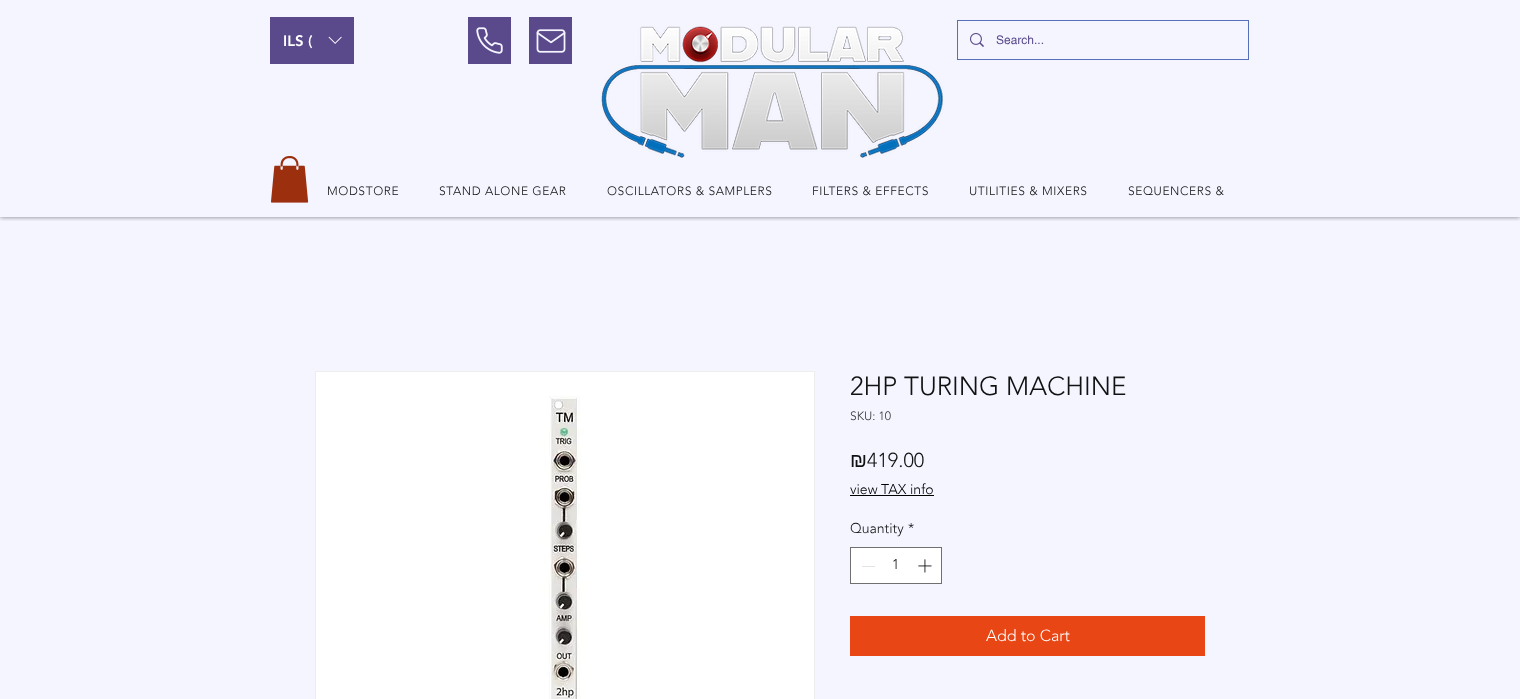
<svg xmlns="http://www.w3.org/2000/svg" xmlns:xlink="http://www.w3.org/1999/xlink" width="1520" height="699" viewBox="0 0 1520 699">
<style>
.cls-1{font:900 15px 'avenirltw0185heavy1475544';fill:#ffffff}
.cls-2{font:12px helvetica;fill:#5a4a8c}
.cls-3{font:300 12px 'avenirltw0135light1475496';letter-spacing:0.6px;fill:#111111}
.cls-4{font:300 26px 'avenirltw0135light1475496';fill:#111111}
.cls-5{font:300 12px 'avenirltw0135light1475496';fill:#333333}
.cls-6{font:20px Liberation Sans;fill:#111111}
.cls-7{font:300 20px 'avenirltw0135light1475496';fill:#111111}
.cls-8{font:300 14px 'avenirltw0135light1475496';fill:#000000}
.cls-9{font:300 14px 'avenirltw0135light1475496';fill:#111111}
.cls-10{font:300 16px 'avenirltw0135light1475496';fill:#ffffff}
</style>
<defs>
<clipPath id="clip1"><rect x="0" y="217" width="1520" height="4"/></clipPath>
</defs>
<rect width="100%" height="100%" fill="#f4f5ff"/>
<g clip-path="url(#clip1)">
<rect fill="#000000" fill-opacity="0.5" filter="blur(2.5px)" x="0" y="0" width="1520" height="217"/>
</g>
<rect fill="#5a4a8c" x="270" y="17" width="84" height="47"/>
<image xlink:href="image0.png" x="328" y="36" width="14" height="8"/>
<rect fill="#5a4a8c" x="468" y="17" width="43" height="47"/>
<image xlink:href="image1.png" x="476" y="27" width="27" height="27"/>
<rect fill="#5a4a8c" x="529" y="17" width="43" height="47"/>
<image xlink:href="image2.png" x="536" y="29" width="30" height="24"/>
<image xlink:href="image3.png" x="601" y="26" width="343" height="132"/>
<rect fill="none" stroke="#566fb8" x="957.5" y="20.5" width="291" height="39"/>
<image xlink:href="image4.png" x="970" y="33" width="14" height="14"/>
<image xlink:href="image5.png" x="271" y="156" width="38" height="47"/>
<rect fill="none" stroke="#ededed" x="315.5" y="371.5" width="499" height="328"/>
<image xlink:href="image6.png" x="316" y="372" width="498" height="327"/>
<rect fill="#000000" x="850" y="495" width="84" height="1"/>
<rect fill="#ffffff" stroke="#707070" x="850.5" y="547.5" width="91" height="36"/>
<rect fill="#e3e3e3" x="862" y="566" width="13" height="1"/>
<image xlink:href="image7.png" x="918" y="559" width="14" height="14"/>
<rect fill="#e94615" x="850" y="616" width="355" height="40"/>
<text class="cls-1" x="283" y="46">ILS (</text>
<text class="cls-2" x="996" y="44">Search...</text>
<text class="cls-3" x="327" y="195">MODSTORE</text>
<text class="cls-3" x="439" y="195">STAND ALONE GEAR</text>
<text class="cls-3" x="607" y="195">OSCILLATORS &amp; SAMPLERS</text>
<text class="cls-3" x="812" y="195">FILTERS &amp; EFFECTS</text>
<text class="cls-3" x="969" y="195">UTILITIES &amp; MIXERS</text>
<text class="cls-3" x="1128" y="195">SEQUENCERS &amp;</text>
<text class="cls-4" x="850" y="395">2HP TURING MACHINE</text>
<text class="cls-5" x="850" y="420">SKU: 10</text>
<text class="cls-6" x="850" y="467">₪</text>
<text class="cls-7" x="867" y="467">419.00</text>
<text class="cls-8" x="850" y="494">view TAX info</text>
<text class="cls-9" x="850" y="533">Quantity</text>
<text class="cls-9" x="908" y="533">*</text>
<text class="cls-9" x="892" y="569">1</text>
<text class="cls-10" x="986" y="641">Add to Cart</text>
</svg>
